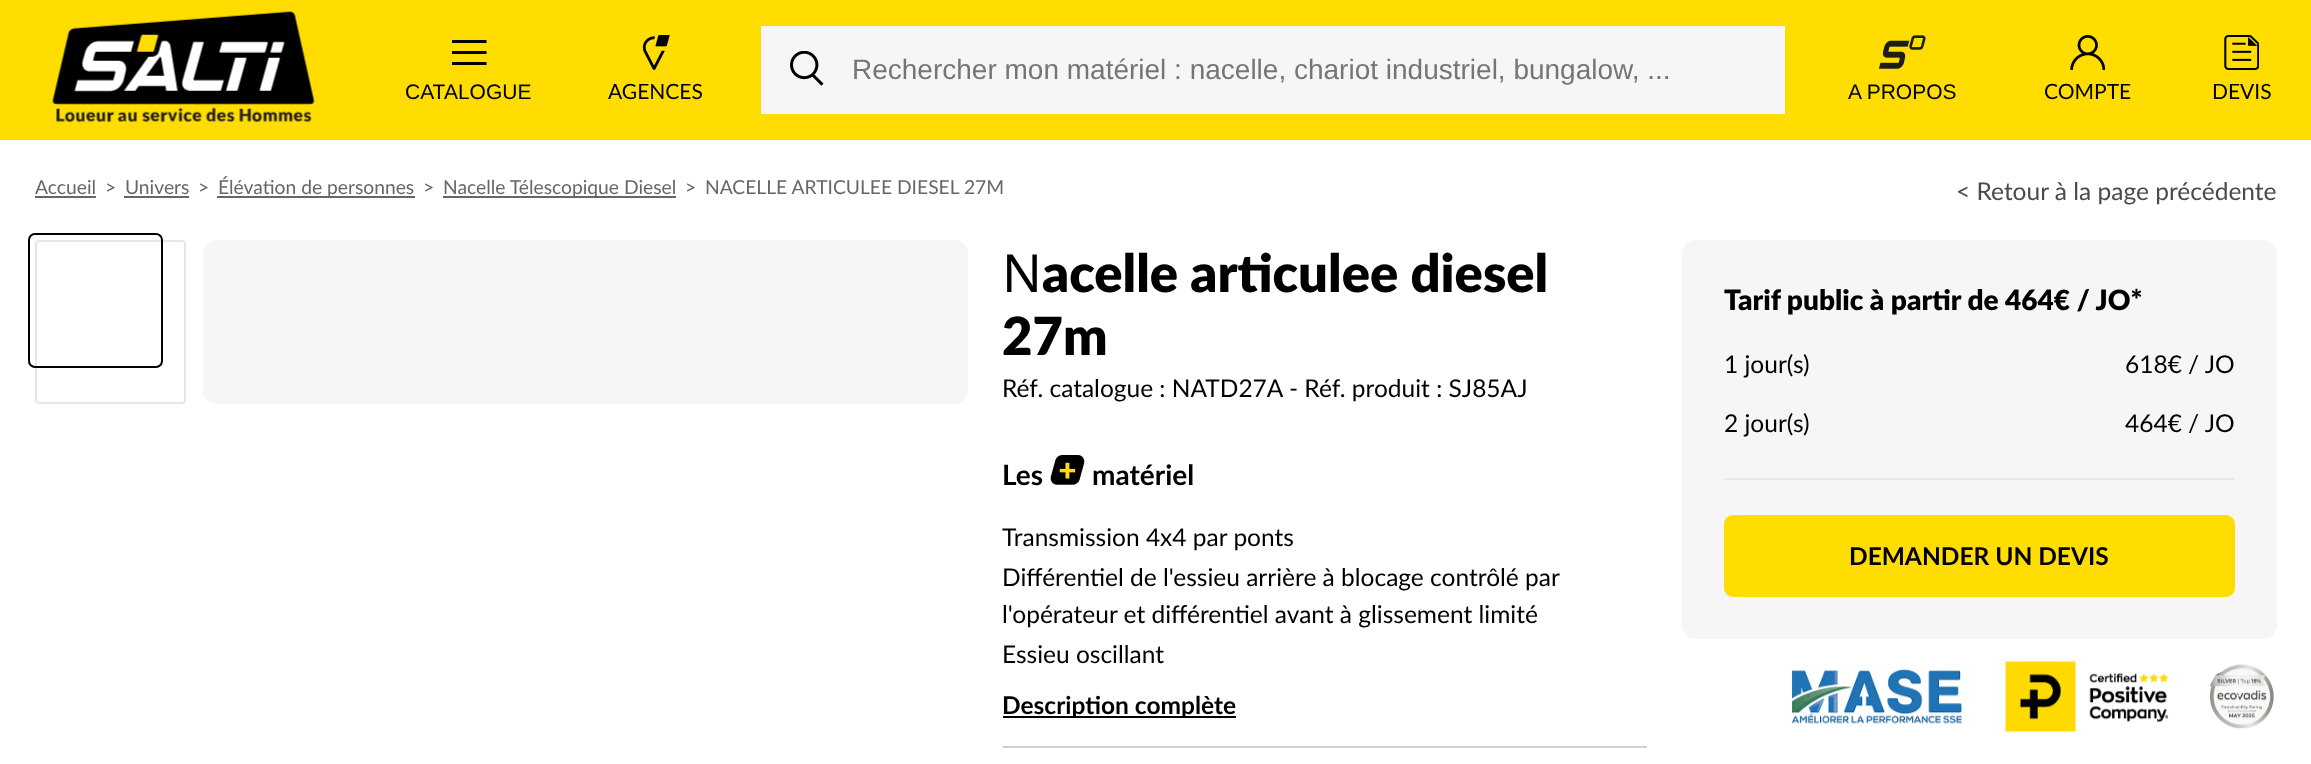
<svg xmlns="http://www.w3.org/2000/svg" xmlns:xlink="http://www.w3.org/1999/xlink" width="2311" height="764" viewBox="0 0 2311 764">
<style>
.cls-1{font:28px Liberation Sans;fill:#757575}
.cls-2{font:21px Liberation Sans;fill:#000000}
.cls-3{font:21px Lato;fill:#000000}
.cls-4{font:19.25px Lato;fill:#666666}
.cls-5{font:24.5px Lato;fill:#4a4a4a}
.cls-6{font:52.5px Noto Sans;fill:#000000}
.cls-7{font:900 52.5px Lato;fill:#000000}
.cls-8{font:24.5px Lato;fill:#000000}
.cls-9{font:bold 28px Lato;fill:#000000}
.cls-10{font:bold 24.5px Lato;fill:#000000}
.cls-11{font:900 28px Lato;fill:#000000}
</style>
<defs>
<clipPath id="clip1"><rect x="452" y="35" width="35" height="35"/></clipPath>
</defs>
<rect width="100%" height="100%" fill="#ffffff"/>
<rect fill="#ffdd00" x="0" y="0" width="2311" height="140"/>
<image xlink:href="image0.png" x="52" y="11" width="263" height="111"/>
<rect fill="#f6f6f6" x="761" y="26" width="1024" height="88"/>
<image xlink:href="image1.png" x="790" y="51" width="34" height="35"/>
<g clip-path="url(#clip1)">
<path fill="#000000" d="M451.5 62H486.5V65H451.5ZM451.5 54H486.5V51H451.5ZM451.5 40V43H486.5V40Z"/>
</g>
<image xlink:href="image2.png" x="642" y="35" width="28" height="35"/>
<image xlink:href="image3.png" x="1879" y="35" width="47" height="34"/>
<image xlink:href="image4.png" x="2070" y="35" width="35" height="35"/>
<image xlink:href="image5.png" x="2224" y="35" width="35" height="35"/>
<rect fill="#666666" x="35" y="196" width="61" height="2"/>
<rect fill="#666666" x="124" y="196" width="65" height="2"/>
<rect fill="#666666" x="217" y="196" width="198" height="2"/>
<rect fill="#666666" x="443" y="196" width="233" height="2"/>
<rect fill="none" stroke="#e6e6e6" stroke-width="2" x="36" y="241" width="149" height="162" rx="3"/>
<rect fill="none" stroke="#000000" stroke-width="2" x="29" y="234" width="133" height="133" rx="6"/>
<rect fill="#f6f6f6" x="203" y="240" width="765" height="164" rx="14"/>
<rect fill="#d0d0d0" x="1003" y="746" width="644" height="2"/>
<image xlink:href="image6.png" x="1050" y="455" width="35" height="30"/>
<rect fill="#000000" x="1003" y="716" width="233" height="2"/>
<rect fill="#f6f6f6" x="1682" y="240" width="595" height="399" rx="14"/>
<rect fill="#e7e7e7" x="1724" y="478" width="511" height="2"/>
<rect fill="#ffdd00" x="1724" y="515" width="511" height="82" rx="9"/>
<image xlink:href="image7.png" x="1792" y="669" width="170" height="55"/>
<image xlink:href="image8.png" x="2005" y="661" width="164" height="72"/>
<image xlink:href="image9.png" x="2210" y="664" width="64" height="65"/>
<text class="cls-1" x="852" y="79">Rechercher mon matériel : nacelle, chariot industriel, bungalow, ...</text>
<text class="cls-2" x="405" y="99">CATALOGUE</text>
<text class="cls-3" x="608" y="99">AGENCES</text>
<text class="cls-2" x="1848" y="99">A PROPOS</text>
<text class="cls-3" x="2044" y="99">COMPTE</text>
<text class="cls-3" x="2212" y="99">DEVIS</text>
<text class="cls-4" x="35" y="194">Accueil</text>
<text class="cls-4" x="105" y="194">&gt;</text>
<text class="cls-4" x="125" y="194">Univers</text>
<text class="cls-4" x="198" y="194">&gt;</text>
<text class="cls-4" x="218" y="194">Élévation de personnes</text>
<text class="cls-4" x="423" y="194">&gt;</text>
<text class="cls-4" x="443" y="194">Nacelle Télescopique Diesel</text>
<text class="cls-4" x="685" y="194">&gt;</text>
<text class="cls-4" x="705" y="194">NACELLE ARTICULEE DIESEL 27M</text>
<text class="cls-5" x="1956" y="200">&lt; Retour à la page précédente</text>
<text class="cls-6" x="1002" y="292">N</text>
<text class="cls-7" x="1042" y="292">acelle articulee diesel</text>
<text class="cls-7" x="1002" y="355">27m</text>
<text class="cls-8" x="1002" y="397">Réf. catalogue : NATD27A</text>
<text class="cls-8" x="1289" y="397">- Réf. produit : SJ85AJ</text>
<text class="cls-9" x="1002" y="485">Les</text>
<text class="cls-9" x="1092" y="485">matériel</text>
<text class="cls-8"><tspan x="1002" y="546">Transmission 4x4 par ponts</tspan><tspan x="1002" y="586">Différentiel de l'essieu arrière à blocage contrôlé par</tspan><tspan x="1002" y="623">l'opérateur et différentiel avant à glissement limité</tspan><tspan x="1002" y="663">Essieu oscillant</tspan></text>
<text class="cls-10" x="1002" y="714">Description complète</text>
<text class="cls-11" x="1724" y="310">Tarif public à partir de 464€ / JO*</text>
<text class="cls-8" x="1724" y="373">1 jour(s)</text>
<text class="cls-8" x="2125" y="373">618€ / JO</text>
<text class="cls-8" x="1724" y="432">2 jour(s)</text>
<text class="cls-8" x="2125" y="432">464€ / JO</text>
<text class="cls-10" x="1849" y="565">DEMANDER UN DEVIS</text>
</svg>
